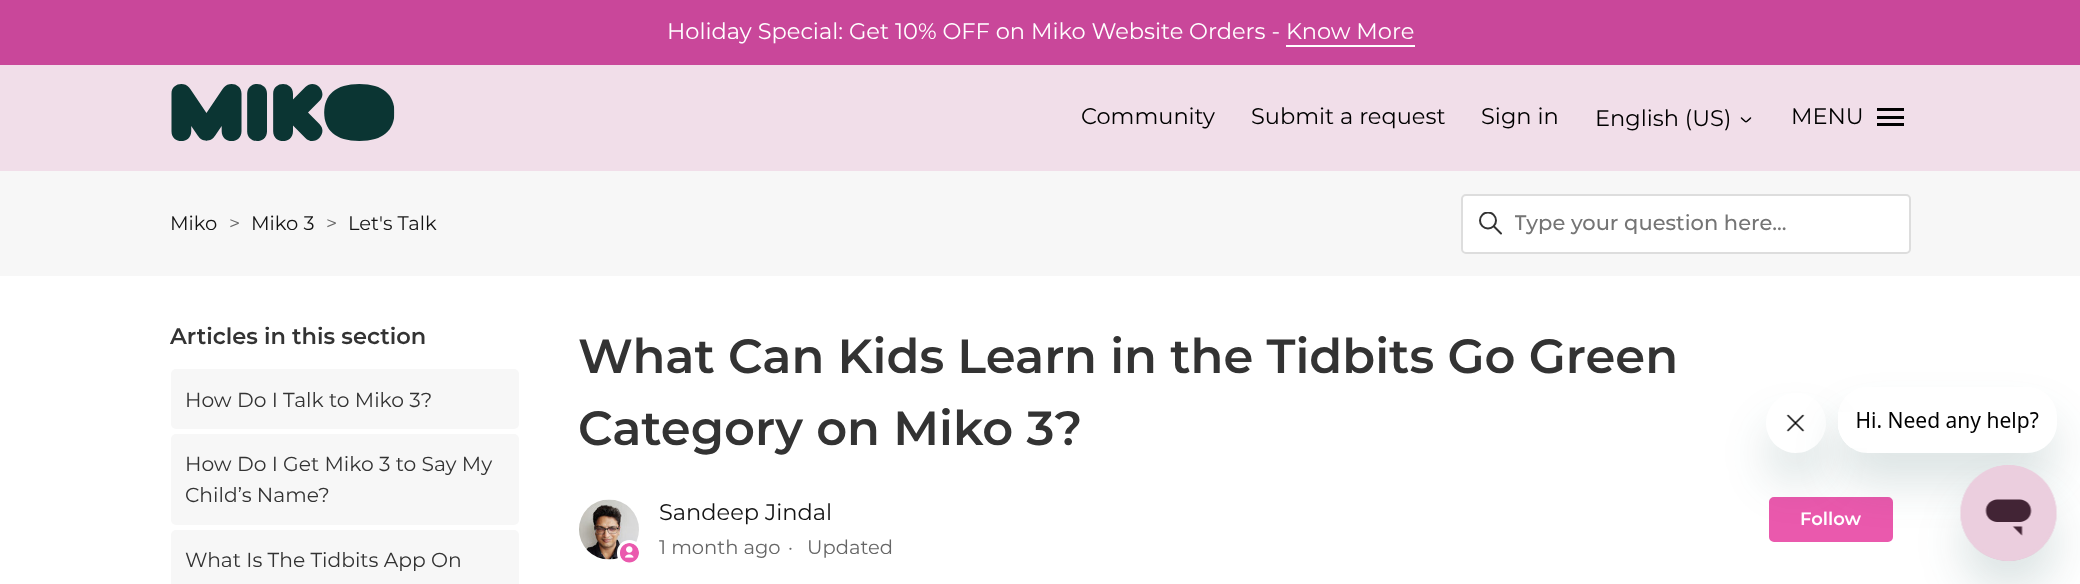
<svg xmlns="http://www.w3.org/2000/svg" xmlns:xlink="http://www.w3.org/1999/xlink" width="2080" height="584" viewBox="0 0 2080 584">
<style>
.cls-1{font:22.5px Montserrat;fill:#ffffff}
.cls-2{font:22.5px Montserrat;fill:#000000}
.cls-3{font:19.5px Montserrat;fill:#141414}
.cls-4{font:19.5px Montserrat;fill:#666666}
.cls-5{font:500 21px Montserrat;fill:#757575}
.cls-6{font:600 22.5px Montserrat;fill:#333333}
.cls-7{font:20.25px Montserrat;fill:#333333}
.cls-8{font:600 48px Montserrat;fill:#333333}
.cls-9{font:22.5px Montserrat;fill:#141414}
.cls-10{font:600 18px Montserrat;fill:#ffffff}
</style>
<defs>
<clipPath id="clip1"><rect x="1479" y="212" width="24" height="24"/></clipPath>
<clipPath id="clip2"><path d="M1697 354H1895V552H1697ZM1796 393C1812.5 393 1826 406.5 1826 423C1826 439.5 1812.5 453 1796 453C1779.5 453 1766 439.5 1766 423C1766 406.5 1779.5 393 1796 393Z" clip-rule="evenodd"/></clipPath>
<clipPath id="clip3"><path d="M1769 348H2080V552H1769ZM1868 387H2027C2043.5 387 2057 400.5 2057 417V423C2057 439.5 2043.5 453 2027 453H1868C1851.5 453 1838 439.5 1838 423V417C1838 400.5 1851.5 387 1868 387Z" clip-rule="evenodd"/></clipPath>
<clipPath id="clip4"><rect x="1515" y="210" width="366" height="27"/></clipPath>
</defs>
<rect width="100%" height="100%" fill="#ffffff"/>
<rect fill="#c9479a" x="0" y="0" width="2080" height="65"/>
<rect fill="#ffffff" x="1286" y="45" width="129" height="2"/>
<rect fill="#f1dee9" x="0" y="65" width="2080" height="106"/>
<image xlink:href="image0.png" x="171" y="84" width="224" height="57"/>
<path fill="none" stroke="#000000" stroke-width="1.5" stroke-linecap="round" d="M1741.5 118C1747 123 1745 123 1750.5 118"/>
<rect fill="#000000" x="1877" y="116" width="27" height="3"/>
<rect fill="#000000" x="1877" y="108" width="27" height="3"/>
<rect fill="#000000" x="1877" y="123" width="27" height="3"/>
<rect fill="#f7f7f7" x="0" y="171" width="2080" height="105"/>
<rect fill="#ffffff" stroke="#dddddd" stroke-width="2" x="1462" y="195" width="448" height="58" rx="4"/>
<g clip-path="url(#clip1)">
<circle fill="none" stroke="#333333" stroke-width="2" cx="1488" cy="220.5" r="8"/>
</g>
<path fill="none" stroke="#333333" stroke-width="2" stroke-linecap="round" d="M1501 233.5L1494 226.5"/>
<rect fill="#f7f7f7" x="171" y="369" width="348" height="60" rx="5"/>
<rect fill="#f7f7f7" x="171" y="434" width="348" height="91" rx="5"/>
<rect fill="#f7f7f7" x="171" y="530" width="348" height="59" rx="5"/>
<image xlink:href="image1.png" x="579" y="499" width="60" height="61"/>
<rect fill="#ffffff" stroke="#ffffff" stroke-width="3" x="618.5" y="541.5" width="22" height="23" rx="11"/>
<image xlink:href="image2.png" x="620" y="543" width="19" height="20"/>
<rect fill="#ea59ad" stroke="#ea59ad" stroke-width="2" x="1770" y="498" width="122" height="43" rx="4"/>
<g clip-path="url(#clip2)">
<rect fill="#17494d" fill-opacity="0.15" filter="blur(22.5px)" x="1766" y="423" width="60" height="60" rx="30"/>
</g>
<image xlink:href="image4.png" x="1786" y="414" width="19" height="18"/>
<g clip-path="url(#clip3)">
<rect fill="#17494d" fill-opacity="0.15" filter="blur(22.5px)" x="1838" y="417" width="219" height="66" rx="30"/>
</g>
<image xlink:href="image3.png" x="1838" y="412" width="201" height="36"/>
<rect fill="#17494d" fill-opacity="0.15" filter="blur(22.5px)" x="1961" y="495" width="96" height="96" rx="48"/>
<image xlink:href="image5.png" x="1960" y="465" width="97" height="96"/>
<text class="cls-1" x="667" y="39">Holiday Special: Get 10% OFF on Miko Website Orders - Know More</text>
<text class="cls-2" x="1081" y="124">Community</text>
<text class="cls-2" x="1251" y="124">Submit a request</text>
<text class="cls-2" x="1481" y="124">Sign in</text>
<text class="cls-2" x="1595" y="126">English (US)</text>
<text class="cls-2" x="1791" y="124">MENU</text>
<text class="cls-3" x="170" y="230">Miko</text>
<text class="cls-4" x="229" y="230">&gt;</text>
<text class="cls-3" x="251" y="230">Miko 3</text>
<text class="cls-4" x="326" y="230">&gt;</text>
<text class="cls-3" x="348" y="230">Let's Talk</text>
<g clip-path="url(#clip4)">
<text class="cls-5" x="1514" y="230">Type your question here...</text>
</g>
<text class="cls-6" x="170" y="344">Articles in this section</text>
<text class="cls-7" x="185" y="407">How Do I Talk to Miko 3?</text>
<text class="cls-7"><tspan x="185" y="471">How Do I Get Miko 3 to Say My</tspan><tspan x="185" y="502">Child’s Name?</tspan></text>
<text class="cls-7" x="185" y="567">What Is The Tidbits App On</text>
<text class="cls-8"><tspan x="578" y="373">What Can Kids Learn in the Tidbits Go Green</tspan><tspan x="578" y="445">Category on Miko 3?</tspan></text>
<text class="cls-9" x="659" y="520">Sandeep Jindal</text>
<text class="cls-4" x="659" y="554">1 month ago</text>
<text class="cls-4" x="788" y="554">·</text>
<text class="cls-4" x="807" y="554">Updated</text>
<text class="cls-10" x="1800" y="525">Follow</text>
</svg>
